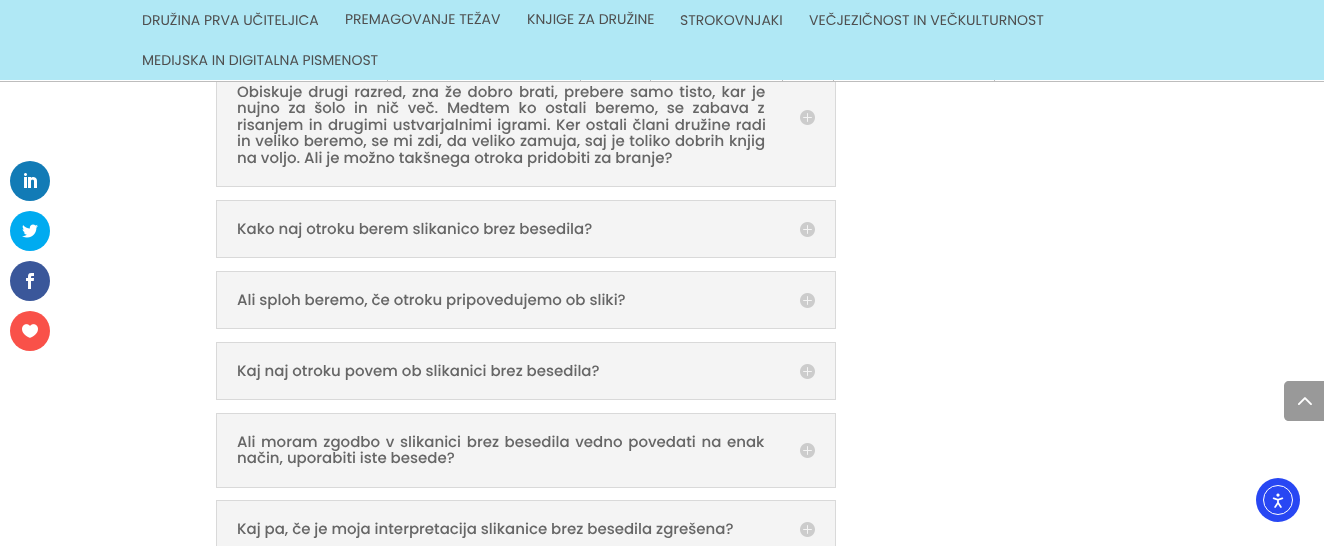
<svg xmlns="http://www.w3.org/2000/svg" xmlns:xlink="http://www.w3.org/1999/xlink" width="1324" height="546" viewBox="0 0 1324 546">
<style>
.cls-1{font:14px Poppins;fill:#4f4f4f}
.cls-2{font:500 15px Poppins;fill:#666666}
</style>
<rect width="100%" height="100%" fill="#ffffff"/>
<circle fill="#127bb6" cx="30" cy="181" r="20"/>
<image xlink:href="image0.png" x="24" y="173" width="13" height="15"/>
<circle fill="#00abf0" cx="30" cy="231" r="20"/>
<image xlink:href="image1.png" x="22" y="224" width="16" height="14"/>
<circle fill="#3a579a" cx="30" cy="281" r="20"/>
<image xlink:href="image2.png" x="26" y="273" width="8" height="16"/>
<circle fill="#f95149" cx="30" cy="331" r="20"/>
<image xlink:href="image3.png" x="22" y="324" width="16" height="14"/>
<rect fill="#f4f4f4" x="217" y="82" width="618" height="104"/>
<rect fill="none" stroke="#d9d9d9" x="216.5" y="46.5" width="619" height="140"/>
<rect fill="#b0e8f5" x="0" y="0" width="1324" height="80"/>
<rect fill="#ffffff" x="216" y="80" width="620" height="1"/>
<rect fill="#bdbdbd" x="0" y="81" width="1324" height="1"/>
<rect fill="#bdbdbd" x="387" y="80" width="1" height="1"/>
<rect fill="#bdbdbd" x="580" y="80" width="1" height="1"/>
<rect fill="#bdbdbd" x="650" y="80" width="1" height="1"/>
<rect fill="#bdbdbd" x="782" y="80" width="1" height="1"/>
<rect fill="#bdbdbd" x="833" y="80" width="1" height="1"/>
<rect fill="#bdbdbd" x="994" y="80" width="1" height="1"/>
<image xlink:href="image4.png" x="800" y="110" width="15" height="15"/>
<rect fill="#f4f4f4" stroke="#d9d9d9" x="216.5" y="200.5" width="619" height="57"/>
<image xlink:href="image4.png" x="800" y="222" width="15" height="15"/>
<rect fill="#f4f4f4" stroke="#d9d9d9" x="216.5" y="271.5" width="619" height="57"/>
<image xlink:href="image4.png" x="800" y="293" width="15" height="15"/>
<rect fill="#f4f4f4" stroke="#d9d9d9" x="216.5" y="342.5" width="619" height="57"/>
<image xlink:href="image4.png" x="800" y="364" width="15" height="15"/>
<rect fill="#f4f4f4" stroke="#d9d9d9" x="216.5" y="413.5" width="619" height="74"/>
<image xlink:href="image4.png" x="800" y="443" width="15" height="15"/>
<rect fill="#f4f4f4" stroke="#d9d9d9" x="216.5" y="500.5" width="619" height="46"/>
<image xlink:href="image4.png" x="800" y="522" width="15" height="15"/>
<path fill="#999999" d="M1289 381H1324V421H1289C1286 421 1284 419 1284 416V386C1284 383 1286 381 1289 381Z"/>
<image xlink:href="image5.png" x="1298" y="397" width="14" height="8"/>
<circle fill="#2847f3" cx="1278" cy="500" r="22"/>
<circle fill="none" stroke="#ffffff" cx="1278" cy="500" r="14.5"/>
<image xlink:href="image6.png" x="1272" y="493" width="12" height="15"/>
<text class="cls-1" x="142" y="25">DRUŽINA PRVA UČITELJICA</text>
<text class="cls-1" x="345" y="24">PREMAGOVANJE TEŽAV</text>
<text class="cls-1" x="527" y="24">KNJIGE ZA DRUŽINE</text>
<text class="cls-1" x="680" y="25">STROKOVNJAKI</text>
<text class="cls-1" x="809" y="25">VEČJEZIČNOST IN VEČKULTURNOST</text>
<text class="cls-1" x="142" y="65">MEDIJSKA IN DIGITALNA PISMENOST</text>
<text class="cls-2"><tspan x="237" y="97" word-spacing="2.25">Obiskuje drugi razred, zna že dobro brati, prebere samo tisto, kar je</tspan><tspan x="237" y="113" word-spacing="4.75">nujno za šolo in nič več. Medtem ko ostali beremo, se zabava z</tspan><tspan x="237" y="130" word-spacing="1.5">risanjem in drugimi ustvarjalnimi igrami. Ker ostali člani družine radi</tspan><tspan x="237" y="146" word-spacing="0.75">in veliko beremo, se mi zdi, da veliko zamuja, saj je toliko dobrih knjig</tspan><tspan x="237" y="163">na voljo. Ali je možno takšnega otroka pridobiti za branje?</tspan></text>
<text class="cls-2" x="237" y="234">Kako naj otroku berem slikanico brez besedila?</text>
<text class="cls-2" x="237" y="305">Ali sploh beremo, če otroku pripovedujemo ob sliki?</text>
<text class="cls-2" x="237" y="376">Kaj naj otroku povem ob slikanici brez besedila?</text>
<text class="cls-2"><tspan x="237" y="447" word-spacing="1.75">Ali moram zgodbo v slikanici brez besedila vedno povedati na enak</tspan><tspan x="237" y="463">način, uporabiti iste besede?</tspan></text>
<text class="cls-2" x="237" y="534">Kaj pa, če je moja interpretacija slikanice brez besedila zgrešena?</text>
</svg>
